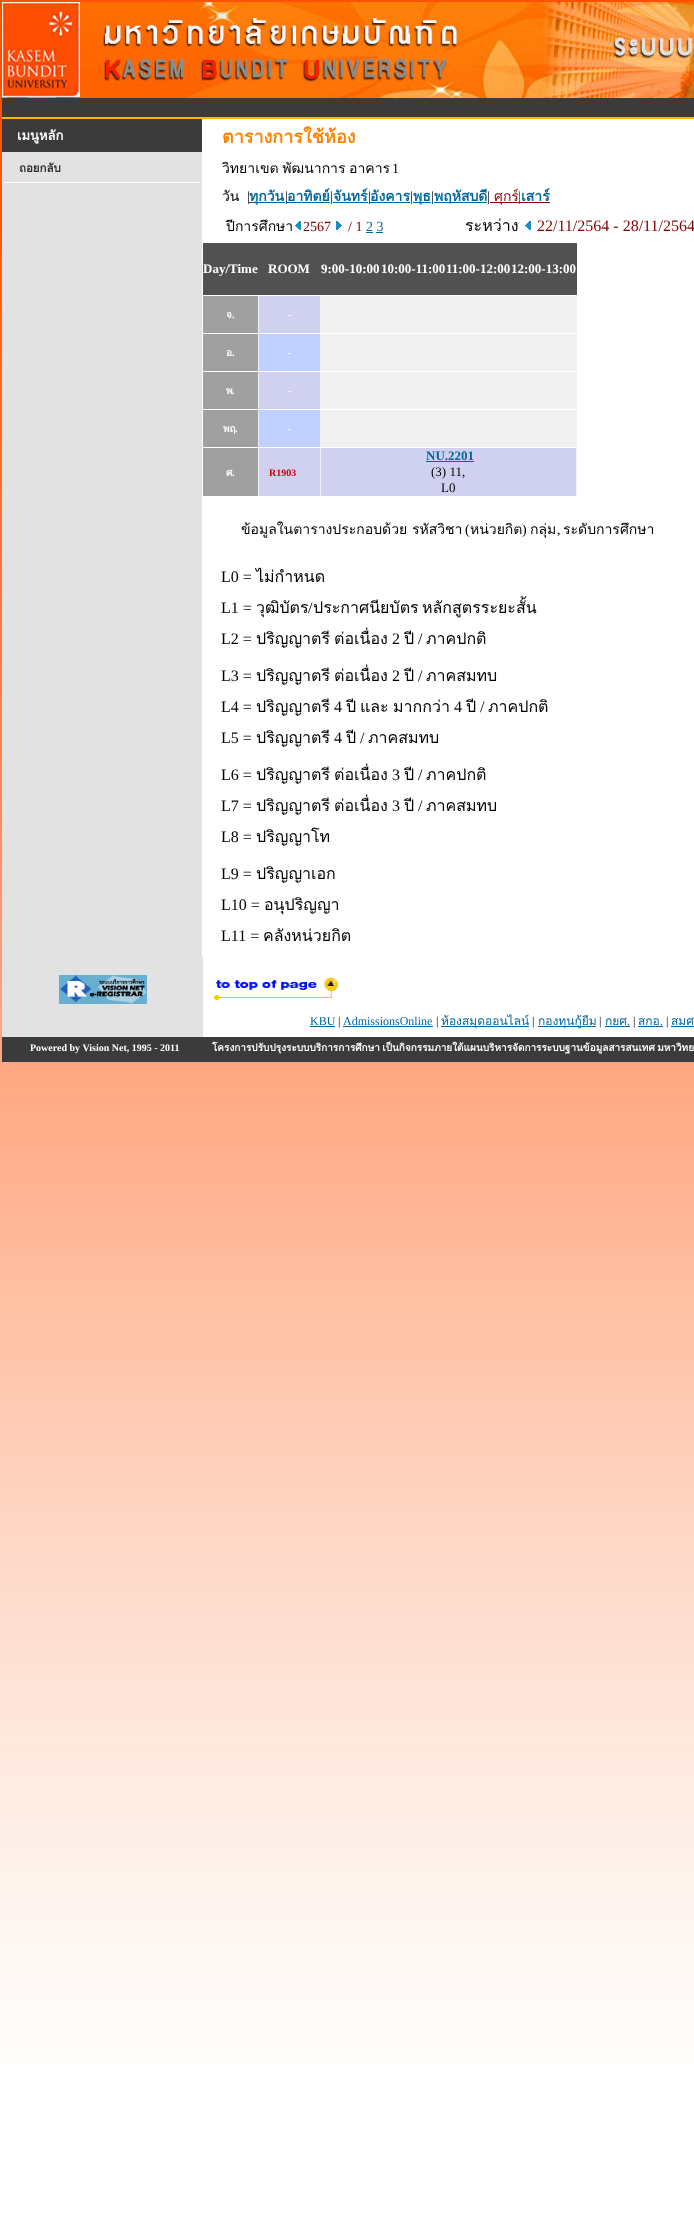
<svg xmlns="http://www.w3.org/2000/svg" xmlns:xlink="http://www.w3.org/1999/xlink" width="694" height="2240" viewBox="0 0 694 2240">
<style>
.cls-1{font:bold 13px Loma;fill:#ffffff}
.cls-2{font:bold 11.5px Loma;fill:#292d2e}
.cls-3{font:bold 18px Loma;fill:#ff8000}
.cls-4{font:14px Loma;fill:#000000}
.cls-5{font:14px Liberation Serif;fill:#000000}
.cls-6{font:bold 14px Loma;fill:#006699}
.cls-7{font:14px Loma;fill:#900000}
.cls-8{font:14px Liberation Serif;fill:#900000}
.cls-9{font:14px Liberation Serif;fill:#800000}
.cls-10{font:14px Liberation Serif;fill:#006699}
.cls-11{font:16px Loma;fill:#000000}
.cls-12{font:16px Liberation Serif;fill:#800000}
.cls-13{font:bold 13px Liberation Serif;fill:#ffffff}
.cls-14{font:bold 10px Loma;fill:#ffffff}
.cls-15{font:bold 10px Liberation Serif;fill:#ffffff}
.cls-16{font:bold 10px Liberation Serif;fill:#d00000}
.cls-17{font:bold 13px Liberation Serif;fill:#006699}
.cls-18{font:13px Liberation Serif;fill:#000000}
.cls-19{font:16px Liberation Serif;fill:#000000}
.cls-20{font:12px Liberation Serif;fill:#000000}
.cls-21{font:12px Liberation Serif;fill:#006699}
.cls-22{font:12px Loma;fill:#006699}
</style>
<rect width="100%" height="100%" fill="#ffffff"/>
<image xlink:href="image0.png" x="0" y="0" width="694" height="2065"/>
<image xlink:href="image1.png" x="2" y="1062" width="690" height="1003"/>
<rect fill="#ffffff" x="203" y="957" width="491" height="80"/>
<image xlink:href="image2.png" x="2" y="2" width="692" height="96"/>
<rect fill="#e2e2e2" x="2" y="152" width="201" height="885"/>
<rect fill="#3b3b3b" x="2" y="98" width="692" height="19"/>
<rect fill="#ffba00" x="2" y="117" width="692" height="2"/>
<rect fill="#3b3b3b" x="2" y="119" width="200" height="33"/>
<rect fill="#ffffff" x="4" y="182" width="196" height="1"/>
<rect fill="#ffffff" x="202" y="119" width="492" height="838"/>
<rect fill="#006699" x="249" y="202" width="36" height="1"/>
<rect fill="#006699" x="287" y="202" width="43" height="1"/>
<rect fill="#006699" x="333" y="202" width="35" height="1"/>
<rect fill="#006699" x="434" y="202" width="53" height="1"/>
<rect fill="#900000" x="490" y="202" width="60" height="1"/>
<rect fill="#006699" x="370" y="202" width="40" height="1"/>
<rect fill="#006699" x="413" y="202" width="18" height="1"/>
<image xlink:href="image3.png" x="295" y="221" width="6" height="9"/>
<image xlink:href="image4.png" x="336" y="221" width="6" height="9"/>
<rect fill="#006699" x="366" y="232" width="7" height="1"/>
<rect fill="#006699" x="376" y="232" width="7" height="1"/>
<image xlink:href="image3.png" x="525" y="221" width="6" height="9"/>
<rect fill="#515151" x="203" y="243" width="374" height="52"/>
<rect fill="#f0f0f0" x="258" y="296" width="319" height="37"/>
<rect fill="#a0a0a0" x="203" y="296" width="55" height="37"/>
<rect fill="#d0d0f0" x="259" y="296" width="61" height="37"/>
<rect fill="#f0f0f0" x="258" y="334" width="319" height="37"/>
<rect fill="#a0a0a0" x="203" y="334" width="55" height="37"/>
<rect fill="#c0d0ff" x="259" y="334" width="61" height="37"/>
<rect fill="#f0f0f0" x="258" y="372" width="319" height="37"/>
<rect fill="#a0a0a0" x="203" y="372" width="55" height="37"/>
<rect fill="#d0d0f0" x="259" y="372" width="61" height="37"/>
<rect fill="#f0f0f0" x="258" y="410" width="319" height="37"/>
<rect fill="#a0a0a0" x="203" y="410" width="55" height="37"/>
<rect fill="#c0d0ff" x="259" y="410" width="61" height="37"/>
<rect fill="#f0f0f0" x="258" y="448" width="319" height="48"/>
<rect fill="#a0a0a0" x="203" y="448" width="55" height="48"/>
<rect fill="#d0d0f0" x="259" y="448" width="61" height="48"/>
<rect fill="#d0d0f0" x="321" y="448" width="255" height="48"/>
<rect fill="#006699" x="426" y="461" width="48" height="1"/>
<image xlink:href="image5.png" x="59" y="975" width="88" height="29"/>
<image xlink:href="image6.png" x="214" y="977" width="124" height="23"/>
<rect fill="#006699" x="343" y="1026" width="90" height="1"/>
<rect fill="#006699" x="441" y="1026" width="88" height="1"/>
<rect fill="#006699" x="538" y="1026" width="58" height="1"/>
<rect fill="#006699" x="310" y="1026" width="25" height="1"/>
<rect fill="#006699" x="605" y="1026" width="25" height="1"/>
<rect fill="#006699" x="638" y="1026" width="25" height="1"/>
<rect fill="#006699" x="671" y="1026" width="23" height="1"/>
<rect fill="#3b3b3b" x="2" y="1037" width="692" height="25"/>
<text class="cls-1" x="17" y="140">เมนูหลัก</text>
<text class="cls-2" x="19" y="172">ถอยกลับ</text>
<text class="cls-3" x="222" y="143">ตารางการใช้ห้อง</text>
<text class="cls-4" x="222" y="173" word-spacing="-1">วิทยาเขต พัฒนาการ</text>
<text class="cls-4" x="349" y="173">อาคาร</text>
<text class="cls-5" x="392" y="173">1</text>
<text class="cls-4" x="222" y="201">วัน</text>
<text class="cls-6" x="287" y="201">อาทิตย์</text>
<text class="cls-6" x="434" y="201">พฤหัสบดี</text>
<text class="cls-7" x="494" y="201">ศุกร์</text>
<text class="cls-6" x="521" y="201">เสาร์</text>
<text class="cls-5" x="247" y="201">|</text>
<text class="cls-6" x="249" y="201">ทุกวัน</text>
<text class="cls-5" x="285" y="201">|</text>
<text class="cls-5" x="330" y="201">|</text>
<text class="cls-6" x="333" y="201">จันทร์</text>
<text class="cls-5" x="368" y="201">|</text>
<text class="cls-6" x="370" y="201">อังคาร</text>
<text class="cls-5" x="410" y="201">|</text>
<text class="cls-5" x="431" y="201">|</text>
<text class="cls-5" x="487" y="201">|</text>
<text class="cls-8" x="518" y="201">|</text>
<text class="cls-6" x="413" y="201">พุธ</text>
<text class="cls-4" x="226" y="231">ปีการศึกษา</text>
<text class="cls-9" x="303" y="231">2567</text>
<text class="cls-9" x="348" y="231">/ 1</text>
<text class="cls-10" x="366" y="231">2 3</text>
<text class="cls-11" x="465" y="231">ระหว่าง</text>
<text class="cls-12" x="537" y="231">22/11/2564 - 28/11/2564</text>
<text class="cls-13" x="203" y="273">Day/Time</text>
<text class="cls-13" x="268" y="273">ROOM</text>
<text class="cls-13" x="321" y="273">9:00-10:00</text>
<text class="cls-13" x="381" y="273">10:00-11:00</text>
<text class="cls-13" x="446" y="273">11:00-12:00</text>
<text class="cls-13" x="511" y="273">12:00-13:00</text>
<text class="cls-14" x="226" y="318">จ</text>
<text class="cls-15" x="232" y="318">.</text>
<text class="cls-15" x="288" y="318">-</text>
<text class="cls-14" x="226" y="356">อ</text>
<text class="cls-15" x="232" y="356">.</text>
<text class="cls-15" x="288" y="356">-</text>
<text class="cls-14" x="226" y="394">พ</text>
<text class="cls-15" x="232" y="394">.</text>
<text class="cls-15" x="288" y="394">-</text>
<text class="cls-14" x="223" y="432">พฤ</text>
<text class="cls-15" x="235" y="432">.</text>
<text class="cls-15" x="288" y="432">-</text>
<text class="cls-14" x="226" y="476">ศ</text>
<text class="cls-15" x="232" y="476">.</text>
<text class="cls-16" x="269" y="476">R1903</text>
<text class="cls-17" x="426" y="460">NU.2201</text>
<text class="cls-18" x="431" y="476">(3) 11,</text>
<text class="cls-18" x="441" y="492">L0</text>
<text class="cls-4" x="241" y="534">ข้อมูลในตารางประกอบด้วย รหัสวิชา</text>
<text class="cls-5" x="465" y="534">(</text>
<text class="cls-4" x="470" y="534">หน่วยกิต</text>
<text class="cls-5" x="522" y="534">)</text>
<text class="cls-4" x="530" y="534">กลุ่ม</text>
<text class="cls-5" x="557" y="534">,</text>
<text class="cls-4" x="563" y="534">ระดับการศึกษา</text>
<text class="cls-19" x="221" y="582">L0 =</text>
<text class="cls-11" x="256" y="582">ไม่กำหนด</text>
<text class="cls-19" x="221" y="613">L1 =</text>
<text class="cls-11" x="256" y="613">วุฒิบัตร</text>
<text class="cls-19" x="308" y="613">/</text>
<text class="cls-11" x="313" y="613">ประกาศนียบัตร</text>
<text class="cls-11" x="422" y="613">หลักสูตรระยะสั้น</text>
<text class="cls-19" x="221" y="644">L2 =</text>
<text class="cls-11" x="256" y="644">ปริญญาตรี</text>
<text class="cls-11" x="334" y="644">ต่อเนื่อง</text>
<text class="cls-19" x="392" y="644">2</text>
<text class="cls-11" x="404" y="644">ปี</text>
<text class="cls-19" x="418" y="644">/</text>
<text class="cls-11" x="426" y="644">ภาคปกติ</text>
<text class="cls-19" x="221" y="681">L3 =</text>
<text class="cls-11" x="256" y="681">ปริญญาตรี</text>
<text class="cls-11" x="334" y="681">ต่อเนื่อง</text>
<text class="cls-19" x="392" y="681">2</text>
<text class="cls-11" x="404" y="681">ปี</text>
<text class="cls-19" x="418" y="681">/</text>
<text class="cls-11" x="426" y="681">ภาคสมทบ</text>
<text class="cls-19" x="221" y="712">L4 =</text>
<text class="cls-11" x="256" y="712">ปริญญาตรี</text>
<text class="cls-11" x="393" y="712">มากกว่า</text>
<text class="cls-11" x="488" y="712">ภาคปกติ</text>
<text class="cls-19" x="334" y="712">4</text>
<text class="cls-11" x="346" y="712">ปี</text>
<text class="cls-11" x="360" y="712">และ</text>
<text class="cls-19" x="454" y="712">4</text>
<text class="cls-11" x="466" y="712">ปี</text>
<text class="cls-19" x="480" y="712">/</text>
<text class="cls-19" x="221" y="743">L5 =</text>
<text class="cls-11" x="256" y="743">ปริญญาตรี</text>
<text class="cls-19" x="334" y="743">4</text>
<text class="cls-11" x="346" y="743">ปี</text>
<text class="cls-19" x="360" y="743">/</text>
<text class="cls-11" x="368" y="743">ภาคสมทบ</text>
<text class="cls-19" x="221" y="780">L6 =</text>
<text class="cls-11" x="256" y="780">ปริญญาตรี</text>
<text class="cls-11" x="334" y="780">ต่อเนื่อง</text>
<text class="cls-19" x="392" y="780">3</text>
<text class="cls-11" x="404" y="780">ปี</text>
<text class="cls-19" x="418" y="780">/</text>
<text class="cls-11" x="426" y="780">ภาคปกติ</text>
<text class="cls-19" x="221" y="811">L7 =</text>
<text class="cls-11" x="256" y="811">ปริญญาตรี</text>
<text class="cls-11" x="334" y="811">ต่อเนื่อง</text>
<text class="cls-19" x="392" y="811">3</text>
<text class="cls-11" x="404" y="811">ปี</text>
<text class="cls-19" x="418" y="811">/</text>
<text class="cls-11" x="426" y="811">ภาคสมทบ</text>
<text class="cls-19" x="221" y="842">L8 =</text>
<text class="cls-11" x="256" y="842">ปริญญาโท</text>
<text class="cls-19" x="221" y="879">L9 =</text>
<text class="cls-11" x="256" y="879">ปริญญาเอก</text>
<text class="cls-19" x="221" y="910">L10 =</text>
<text class="cls-11" x="264" y="910">อนุปริญญา</text>
<text class="cls-19" x="221" y="941">L11 =</text>
<text class="cls-11" x="263" y="941">คลังหน่วยกิต</text>
<text class="cls-20" x="338" y="1025">|</text>
<text class="cls-21" x="343" y="1025">AdmissionsOnline</text>
<text class="cls-22" x="538" y="1025">กองทุนกู้ยืม</text>
<text class="cls-21" x="310" y="1025">KBU</text>
<text class="cls-20" x="436" y="1025">|</text>
<text class="cls-22" x="441" y="1025">ห้องสมุดออนไลน์</text>
<text class="cls-20" x="532" y="1025">|</text>
<text class="cls-20" x="599" y="1025">|</text>
<text class="cls-22" x="605" y="1025">กยศ</text>
<text class="cls-21" x="627" y="1025">.</text>
<text class="cls-20" x="633" y="1025">|</text>
<text class="cls-22" x="638" y="1025">สกอ</text>
<text class="cls-21" x="660" y="1025">.</text>
<text class="cls-20" x="666" y="1025">|</text>
<text class="cls-22" x="671" y="1025">สมศ</text>
<text class="cls-15" x="30" y="1051">Powered by Vision Net, 1995 - 2011</text>
<text class="cls-14" x="212" y="1051" word-spacing="-1">โครงการปรับปรุงระบบบริการการศึกษา เป็นกิจกรรมภายใต้แผนบริหารจัดการระบบฐานข้อมูลสารสนเทศ มหาวิทย</text>
</svg>
